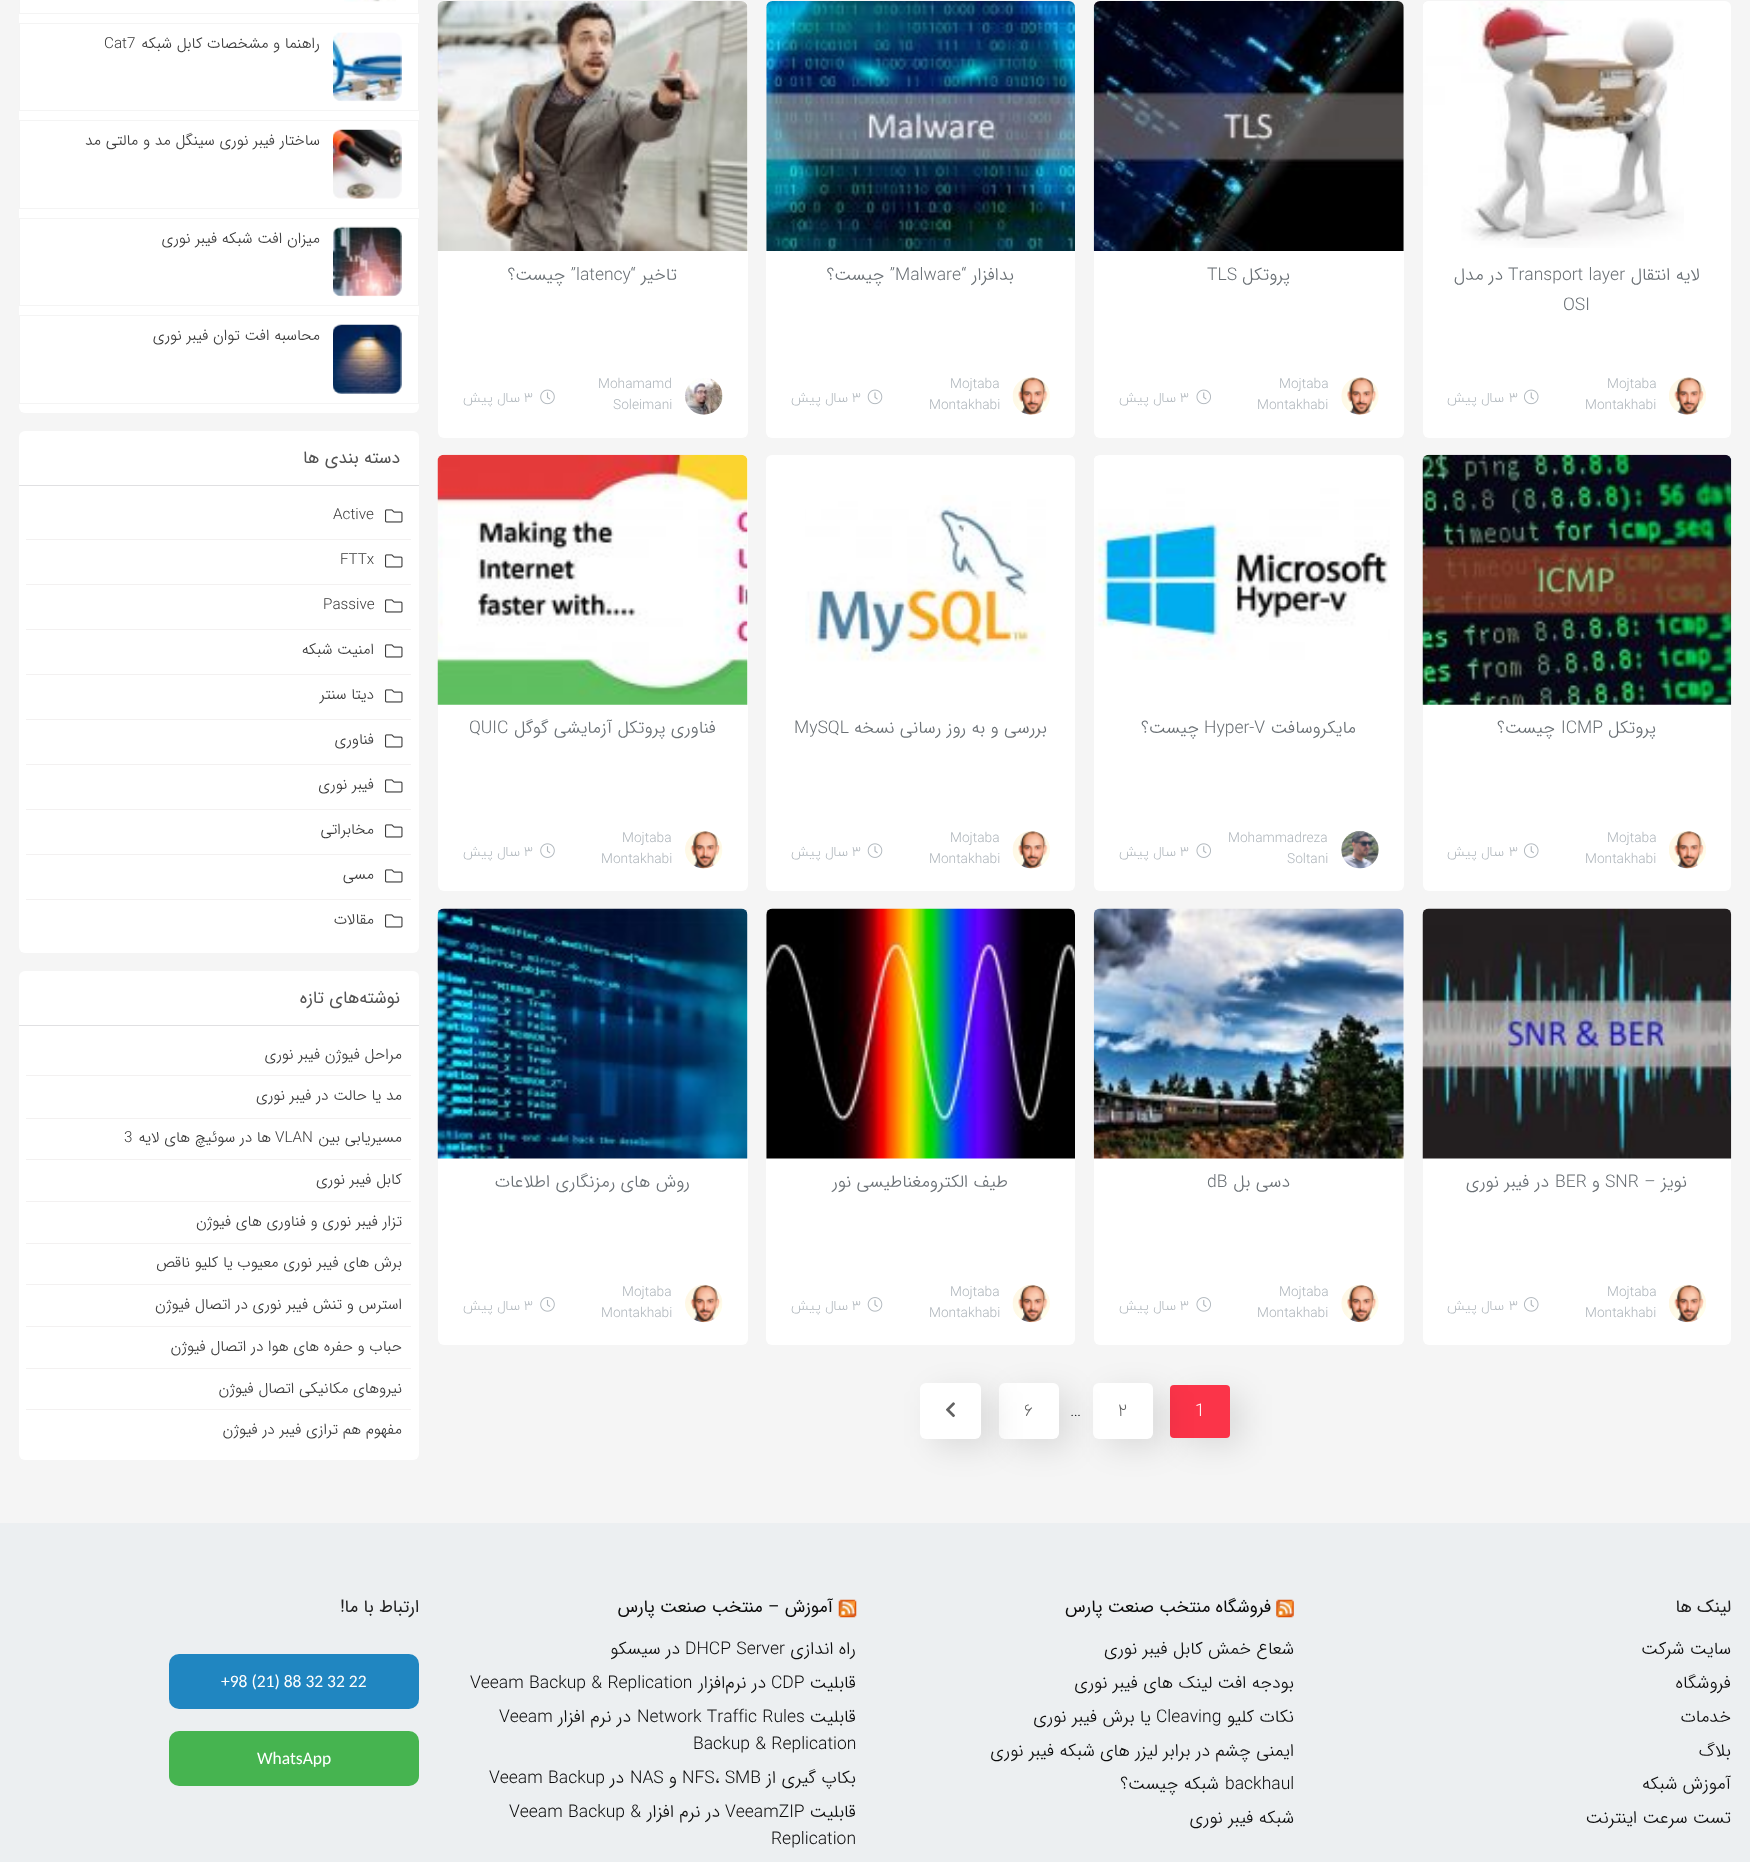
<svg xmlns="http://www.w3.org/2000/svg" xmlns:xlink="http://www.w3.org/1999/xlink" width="1750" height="1862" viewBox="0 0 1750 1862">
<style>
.cls-1{font:300 17.5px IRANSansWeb;direction:rtl;fill:#6a7075}
.cls-2{font:300 17.5px IRANSansWeb;fill:#6a7075}
.cls-3{font:300 13.75px IRANSansWeb;fill:#afb6bc}
.cls-4{font:300 13.75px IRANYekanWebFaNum;fill:#afb6bc}
.cls-5{font:300 13.75px IRANYekanWebFaNum;direction:rtl;fill:#afb6bc}
.cls-6{font:300 17.5px IRANSansWeb;fill:#ffffff}
.cls-7{font:300 17.5px IRANYekanWebFaNum;fill:#616161}
.cls-8{font:300 17.5px IRANSansWeb;fill:#212529}
.cls-9{font:300 15.25px IRANSansWeb;direction:rtl;fill:#3b3b3b}
.cls-10{font:300 15.25px IRANSansWeb;fill:#3b3b3b}
.cls-11{font:17.5px IRANSansWeb;direction:rtl;fill:#535353}
.cls-12{font:17.5px IRANSansWeb;direction:rtl;fill:#212121}
.cls-13{font:300 17.5px IRANSansWeb;direction:rtl;fill:#0a0a0a}
.cls-14{font:17.5px IRANSansWeb;direction:rtl;fill:#0a0a0a}
.cls-15{font:300 17.5px IRANSansWeb;fill:#0a0a0a}
.cls-16{font:17.5px Carlito;fill:#ffffff}
</style>
<rect width="100%" height="100%" fill="#f5f5f5"/>
<rect fill="#ffffff" x="1423" y="1" width="308" height="437" rx="6"/>
<image xlink:href="image0.png" x="1423" y="1" width="261" height="247"/>
<image xlink:href="image1.png" x="1669" y="377" width="37" height="38"/>
<image xlink:href="image2.png" x="1524" y="389" width="15" height="16"/>
<rect fill="#ffffff" x="1094" y="1" width="310" height="437" rx="6"/>
<image xlink:href="image3.png" x="1093" y="1" width="311" height="250"/>
<image xlink:href="image4.png" x="1341" y="377" width="38" height="38"/>
<image xlink:href="image5.png" x="1196" y="389" width="15" height="16"/>
<rect fill="#ffffff" x="766" y="1" width="309" height="437" rx="6"/>
<image xlink:href="image6.png" x="766" y="1" width="309" height="250"/>
<image xlink:href="image7.png" x="1012" y="377" width="38" height="38"/>
<image xlink:href="image8.png" x="867" y="389" width="16" height="16"/>
<rect fill="#ffffff" x="438" y="1" width="310" height="437" rx="6"/>
<image xlink:href="image9.png" x="437" y="1" width="311" height="250"/>
<image xlink:href="image10.png" x="685" y="378" width="38" height="37"/>
<image xlink:href="image11.png" x="540" y="389" width="15" height="16"/>
<rect fill="#ffffff" x="1423" y="455" width="308" height="436" rx="6"/>
<image xlink:href="image12.png" x="1422" y="454" width="310" height="251"/>
<image xlink:href="image13.png" x="1669" y="831" width="37" height="38"/>
<image xlink:href="image14.png" x="1524" y="843" width="15" height="15"/>
<rect fill="#ffffff" x="1094" y="455" width="310" height="436" rx="6"/>
<image xlink:href="image15.png" x="1094" y="456" width="296" height="204"/>
<image xlink:href="image16.png" x="1341" y="831" width="38" height="38"/>
<image xlink:href="image17.png" x="1196" y="843" width="15" height="15"/>
<rect fill="#ffffff" x="766" y="455" width="309" height="436" rx="6"/>
<image xlink:href="image18.png" x="805" y="495" width="241" height="167"/>
<image xlink:href="image19.png" x="1012" y="831" width="38" height="38"/>
<image xlink:href="image20.png" x="867" y="843" width="16" height="15"/>
<rect fill="#ffffff" x="438" y="455" width="310" height="436" rx="6"/>
<image xlink:href="image21.png" x="437" y="454" width="311" height="251"/>
<image xlink:href="image22.png" x="685" y="831" width="38" height="38"/>
<image xlink:href="image23.png" x="540" y="843" width="15" height="15"/>
<rect fill="#ffffff" x="1423" y="909" width="308" height="436" rx="6"/>
<image xlink:href="image24.png" x="1422" y="908" width="310" height="251"/>
<image xlink:href="image25.png" x="1669" y="1284" width="37" height="39"/>
<image xlink:href="image26.png" x="1524" y="1297" width="15" height="15"/>
<rect fill="#000000" fill-opacity="0.1" filter="blur(15.5px)" x="1183" y="1394" width="60" height="52" rx="4"/>
<rect fill="#fb3449" x="1170" y="1385" width="60" height="53" rx="4"/>
<rect fill="#000000" fill-opacity="0.1" filter="blur(15.5px)" x="1105" y="1391" width="60" height="57" rx="6"/>
<rect fill="#ffffff" x="1093" y="1383" width="60" height="56" rx="6"/>
<rect fill="#000000" fill-opacity="0.1" filter="blur(15.5px)" x="1011" y="1391" width="60" height="57" rx="6"/>
<rect fill="#ffffff" x="1094" y="909" width="310" height="436" rx="6"/>
<image xlink:href="image27.png" x="1093" y="908" width="311" height="251"/>
<image xlink:href="image28.png" x="1341" y="1284" width="38" height="39"/>
<image xlink:href="image29.png" x="1196" y="1297" width="15" height="15"/>
<rect fill="#ffffff" x="999" y="1383" width="60" height="56" rx="6"/>
<rect fill="#000000" fill-opacity="0.1" filter="blur(15.5px)" x="933" y="1391" width="61" height="57" rx="6"/>
<rect fill="#ffffff" x="766" y="909" width="309" height="436" rx="6"/>
<image xlink:href="image30.png" x="766" y="908" width="309" height="251"/>
<image xlink:href="image31.png" x="1012" y="1284" width="38" height="39"/>
<image xlink:href="image32.png" x="867" y="1297" width="16" height="15"/>
<rect fill="#ffffff" x="438" y="909" width="310" height="436" rx="6"/>
<image xlink:href="image33.png" x="437" y="908" width="311" height="251"/>
<image xlink:href="image34.png" x="685" y="1284" width="38" height="39"/>
<image xlink:href="image35.png" x="540" y="1297" width="15" height="15"/>
<rect fill="#ffffff" x="920" y="1383" width="61" height="56" rx="6"/>
<image xlink:href="image36.png" x="946" y="1402" width="9" height="16"/>
<rect fill="#ffffff" x="19" y="-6" width="400" height="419" rx="6"/>
<rect fill="none" stroke="#f4f4f4" x="19.5" y="-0.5" width="399" height="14"/>
<image xlink:href="image37.png" x="344" y="0" width="52" height="2"/>
<rect fill="none" stroke="#f4f4f4" x="19.5" y="23.5" width="399" height="87"/>
<image xlink:href="image38.png" x="333" y="32" width="69" height="70"/>
<rect fill="none" stroke="#f4f4f4" x="19.5" y="120.5" width="399" height="88"/>
<image xlink:href="image39.png" x="333" y="129" width="69" height="70"/>
<rect fill="none" stroke="#f4f4f4" x="19.5" y="218.5" width="399" height="87"/>
<image xlink:href="image40.png" x="333" y="226" width="69" height="71"/>
<rect fill="none" stroke="#f4f4f4" x="19.5" y="315.5" width="399" height="88"/>
<image xlink:href="image41.png" x="333" y="324" width="69" height="70"/>
<rect fill="#ffffff" x="19" y="431" width="400" height="522" rx="6"/>
<rect fill="#e0e0e2" x="19" y="485" width="400" height="1"/>
<rect fill="#f3f1f1" x="26" y="539" width="385" height="1"/>
<image xlink:href="image42.png" x="385" y="509" width="18" height="14"/>
<rect fill="#f3f1f1" x="26" y="584" width="385" height="1"/>
<image xlink:href="image42.png" x="385" y="554" width="18" height="14"/>
<rect fill="#f3f1f1" x="26" y="629" width="385" height="1"/>
<image xlink:href="image42.png" x="385" y="599" width="18" height="14"/>
<rect fill="#f3f1f1" x="26" y="674" width="385" height="1"/>
<image xlink:href="image42.png" x="385" y="644" width="18" height="14"/>
<rect fill="#f3f1f1" x="26" y="719" width="385" height="1"/>
<image xlink:href="image42.png" x="385" y="689" width="18" height="14"/>
<rect fill="#f3f1f1" x="26" y="764" width="385" height="1"/>
<image xlink:href="image42.png" x="385" y="734" width="18" height="14"/>
<rect fill="#f3f1f1" x="26" y="809" width="385" height="1"/>
<image xlink:href="image42.png" x="385" y="779" width="18" height="14"/>
<rect fill="#f3f1f1" x="26" y="854" width="385" height="1"/>
<image xlink:href="image42.png" x="385" y="824" width="18" height="14"/>
<rect fill="#f3f1f1" x="26" y="899" width="385" height="1"/>
<image xlink:href="image42.png" x="385" y="869" width="18" height="14"/>
<image xlink:href="image42.png" x="385" y="914" width="18" height="14"/>
<rect fill="#ffffff" x="19" y="971" width="400" height="489" rx="6"/>
<rect fill="#e0e0e2" x="19" y="1025" width="400" height="1"/>
<rect fill="#f3f1f1" x="26" y="1075" width="385" height="1"/>
<rect fill="#f3f1f1" x="26" y="1118" width="385" height="1"/>
<rect fill="#f3f1f1" x="26" y="1159" width="385" height="1"/>
<rect fill="#f3f1f1" x="26" y="1201" width="385" height="1"/>
<rect fill="#f3f1f1" x="26" y="1243" width="385" height="1"/>
<rect fill="#f3f1f1" x="26" y="1284" width="385" height="1"/>
<rect fill="#f3f1f1" x="26" y="1326" width="385" height="1"/>
<rect fill="#f3f1f1" x="26" y="1368" width="385" height="1"/>
<rect fill="#f3f1f1" x="26" y="1409" width="385" height="1"/>
<rect fill="#eceff1" x="0" y="1523" width="1750" height="339"/>
<image xlink:href="image43.png" x="1276" y="1599" width="18" height="19"/>
<image xlink:href="image44.png" x="838" y="1599" width="19" height="19"/>
<rect fill="#2086c1" x="169" y="1654" width="250" height="55" rx="10"/>
<rect fill="#46b450" x="169" y="1731" width="250" height="55" rx="10"/>
<text class="cls-1" x="1700" y="280">لایه انتقال</text>
<text class="cls-2" x="1508" y="280">Transport layer</text>
<text class="cls-1" x="1503" y="280">در مدل</text>
<text class="cls-2" x="1563" y="310">OSI</text>
<text class="cls-3" x="1607" y="388">Mojtaba</text>
<text class="cls-3" x="1585" y="409">Montakhabi</text>
<text class="cls-4" x="1509" y="402">3</text>
<text class="cls-5" x="1504" y="402">سال پیش</text>
<text class="cls-1" x="1290" y="280">پروتکل</text>
<text class="cls-2" x="1207" y="280">TLS</text>
<text class="cls-3" x="1279" y="388">Mojtaba</text>
<text class="cls-3" x="1257" y="409">Montakhabi</text>
<text class="cls-4" x="1180" y="402">3</text>
<text class="cls-5" x="1176" y="402">سال پیش</text>
<text class="cls-1" x="1014" y="280">بدافزار “</text>
<text class="cls-2" x="895" y="280">Malware</text>
<text class="cls-1" x="895" y="280">” چیست؟</text>
<text class="cls-3" x="950" y="388">Mojtaba</text>
<text class="cls-3" x="929" y="409">Montakhabi</text>
<text class="cls-4" x="852" y="402">3</text>
<text class="cls-5" x="848" y="402">سال پیش</text>
<text class="cls-1" x="677" y="280">تاخیر “</text>
<text class="cls-2" x="576" y="280">latency</text>
<text class="cls-1" x="576" y="280">” چیست؟</text>
<text class="cls-3" x="598" y="388">Mohamamd</text>
<text class="cls-3" x="613" y="409">Soleimani</text>
<text class="cls-4" x="524" y="402">3</text>
<text class="cls-5" x="520" y="402">سال پیش</text>
<text class="cls-1" x="1656" y="733">پروتکل</text>
<text class="cls-2" x="1561" y="733">ICMP</text>
<text class="cls-1" x="1555" y="733">چیست؟</text>
<text class="cls-3" x="1607" y="842">Mojtaba</text>
<text class="cls-3" x="1585" y="863">Montakhabi</text>
<text class="cls-4" x="1509" y="856">3</text>
<text class="cls-5" x="1504" y="856">سال پیش</text>
<text class="cls-1" x="1356" y="733">مایکروسافت</text>
<text class="cls-2" x="1204" y="733">Hyper-V</text>
<text class="cls-1" x="1199" y="733">چیست؟</text>
<text class="cls-3" x="1228" y="842">Mohammadreza</text>
<text class="cls-3" x="1287" y="863">Soltani</text>
<text class="cls-4" x="1180" y="856">3</text>
<text class="cls-5" x="1176" y="856">سال پیش</text>
<text class="cls-1" x="1047" y="733">بررسی و به روز رسانی نسخه</text>
<text class="cls-2" x="794" y="733">MySQL</text>
<text class="cls-3" x="950" y="842">Mojtaba</text>
<text class="cls-3" x="929" y="863">Montakhabi</text>
<text class="cls-4" x="852" y="856">3</text>
<text class="cls-5" x="848" y="856">سال پیش</text>
<text class="cls-1" x="716" y="733">فناوری پروتکل آزمایشی گوگل</text>
<text class="cls-2" x="469" y="733">QUIC</text>
<text class="cls-3" x="622" y="842">Mojtaba</text>
<text class="cls-3" x="601" y="863">Montakhabi</text>
<text class="cls-4" x="524" y="856">3</text>
<text class="cls-5" x="520" y="856">سال پیش</text>
<text class="cls-1" x="1687" y="1187">نویز –</text>
<text class="cls-2" x="1605" y="1187">SNR</text>
<text class="cls-1" x="1600" y="1187">و</text>
<text class="cls-2" x="1555" y="1187">BER</text>
<text class="cls-1" x="1549" y="1187">در فیبر نوری</text>
<text class="cls-3" x="1607" y="1296">Mojtaba</text>
<text class="cls-3" x="1585" y="1317">Montakhabi</text>
<text class="cls-4" x="1509" y="1310">3</text>
<text class="cls-5" x="1504" y="1310">سال پیش</text>
<text class="cls-1" x="1290" y="1187">دسی بل</text>
<text class="cls-2" x="1207" y="1187">dB</text>
<text class="cls-3" x="1279" y="1296">Mojtaba</text>
<text class="cls-3" x="1257" y="1317">Montakhabi</text>
<text class="cls-4" x="1180" y="1310">3</text>
<text class="cls-5" x="1176" y="1310">سال پیش</text>
<text class="cls-1" x="1008" y="1187">طیف الکترومغناطیسی نور</text>
<text class="cls-3" x="950" y="1296">Mojtaba</text>
<text class="cls-3" x="929" y="1317">Montakhabi</text>
<text class="cls-4" x="852" y="1310">3</text>
<text class="cls-5" x="848" y="1310">سال پیش</text>
<text class="cls-1" x="690" y="1187">روش های رمزنگاری اطلاعات</text>
<text class="cls-3" x="622" y="1296">Mojtaba</text>
<text class="cls-3" x="601" y="1317">Montakhabi</text>
<text class="cls-4" x="524" y="1310">3</text>
<text class="cls-5" x="520" y="1310">سال پیش</text>
<text class="cls-6" x="1195" y="1416">1</text>
<text class="cls-7" x="1118" y="1416">2</text>
<text class="cls-8" x="1070" y="1416">…</text>
<text class="cls-7" x="1024" y="1416">6</text>
<text class="cls-9" x="320" y="48">راهنما و مشخصات کابل شبکه</text>
<text class="cls-10" x="104" y="48">Cat7</text>
<text class="cls-9" x="320" y="145">ساختار فیبر نوری سینگل مد و مالتی مد</text>
<text class="cls-9" x="320" y="243">میزان افت شبکه فیبر نوری</text>
<text class="cls-9" x="320" y="340">محاسبه افت توان فیبر نوری</text>
<text class="cls-11" x="400" y="463">دسته بندی ها</text>
<text class="cls-10" x="333" y="519">Active</text>
<text class="cls-10" x="340" y="564">FTTx</text>
<text class="cls-10" x="323" y="609">Passive</text>
<text class="cls-9" x="374" y="654">امنیت شبکه</text>
<text class="cls-9" x="374" y="699">دیتا سنتر</text>
<text class="cls-9" x="374" y="744">فناوری</text>
<text class="cls-9" x="374" y="789">فیبر نوری</text>
<text class="cls-9" x="374" y="834">مخابراتی</text>
<text class="cls-9" x="374" y="879">مسی</text>
<text class="cls-9" x="374" y="924">مقالات</text>
<text class="cls-11" x="400" y="1003">نوشته‌های تازه</text>
<text class="cls-9" x="402" y="1059">مراحل فیوژن فیبر نوری</text>
<text class="cls-9" x="402" y="1100">مد یا حالت در فیبر نوری</text>
<text class="cls-9" x="402" y="1142">مسیریابی بین</text>
<text class="cls-10" x="275" y="1142">VLAN</text>
<text class="cls-9" x="271" y="1142">ها در سوئیچ های لایه</text>
<text class="cls-10" x="124" y="1142">3</text>
<text class="cls-9" x="402" y="1184">کابل فیبر نوری</text>
<text class="cls-9" x="402" y="1226">تزار فیبر نوری و فناوری های فیوژن</text>
<text class="cls-9" x="402" y="1267">برش های فیبر نوری معیوب یا کلیو ناقص</text>
<text class="cls-9" x="402" y="1309">استرس و تنش فیبر نوری در اتصال فیوژن</text>
<text class="cls-9" x="402" y="1351">حباب و حفره‌ های هوا در اتصال فیوژن</text>
<text class="cls-9" x="402" y="1393">نیروهای مکانیکی اتصال فیوژن</text>
<text class="cls-9" x="402" y="1434">مفهوم هم ترازی فیبر در فیوژن</text>
<text class="cls-12" x="1731" y="1612">لینک ها</text>
<text class="cls-13"><tspan x="1731" y="1654">سایت شرکت</tspan><tspan x="1731" y="1688">فروشگاه</tspan><tspan x="1731" y="1722">خدمات</tspan><tspan x="1731" y="1756">بلاگ</tspan><tspan x="1731" y="1789">آموزش شبکه</tspan><tspan x="1731" y="1823">تست سرعت اینترنت</tspan></text>
<text class="cls-14" x="1271" y="1612">فروشگاه منتخب صنعت پارس</text>
<text class="cls-13"><tspan x="1294" y="1654">شعاع خمش کابل فیبر نوری</tspan><tspan x="1294" y="1688">بودجه افت لینک های فیبر نوری</tspan><tspan x="1294" y="1722">نکات کلیو</tspan></text>
<text class="cls-15" x="1156" y="1722">Cleaving</text>
<text class="cls-13" x="1151" y="1722">یا برش فیبر نوری</text>
<text class="cls-13" x="1294" y="1756">ایمنی چشم در برابر لیزر های شبکه فیبر نوری</text>
<text class="cls-15" x="1225" y="1789">backhaul</text>
<text class="cls-13" x="1219" y="1789">شبکه چیست؟</text>
<text class="cls-13" x="1294" y="1823">شبکه فیبر نوری</text>
<text class="cls-14" x="833" y="1612">آموزش – منتخب صنعت پارس</text>
<text class="cls-13" x="856" y="1654">راه اندازی</text>
<text class="cls-15" x="685" y="1654">DHCP Server</text>
<text class="cls-13" x="680" y="1654">در سیسکو</text>
<text class="cls-13" x="856" y="1688">قابلیت</text>
<text class="cls-15" x="771" y="1688">CDP</text>
<text class="cls-13" x="766" y="1688">در نرم‌افزار</text>
<text class="cls-15" x="470" y="1688">Veeam Backup &amp; Replication</text>
<text class="cls-13" x="856" y="1722">قابلیت</text>
<text class="cls-15" x="637" y="1722">Network Traffic Rules</text>
<text class="cls-13" x="631" y="1722">در نرم افزار</text>
<text class="cls-15" x="499" y="1722">Veeam</text>
<text class="cls-15" x="693" y="1749">Backup &amp; Replication</text>
<text class="cls-13" x="856" y="1783">بکاپ گیری از</text>
<text class="cls-15" x="682" y="1783">NFS، SMB</text>
<text class="cls-13" x="677" y="1783">و</text>
<text class="cls-15" x="630" y="1783">NAS</text>
<text class="cls-13" x="624" y="1783">در</text>
<text class="cls-15" x="489" y="1783">Veeam Backup</text>
<text class="cls-13" x="856" y="1817">قابلیت</text>
<text class="cls-15" x="725" y="1817">VeeamZIP</text>
<text class="cls-13" x="720" y="1817">در نرم افزار</text>
<text class="cls-15" x="509" y="1817">Veeam Backup &amp;</text>
<text class="cls-15" x="771" y="1844">Replication</text>
<text class="cls-12" x="419" y="1612">ارتباط با ما!</text>
<text class="cls-16" x="221" y="1687">+98 (21) 88 32 32 22</text>
<text class="cls-16" x="257" y="1764">WhatsApp</text>
</svg>
